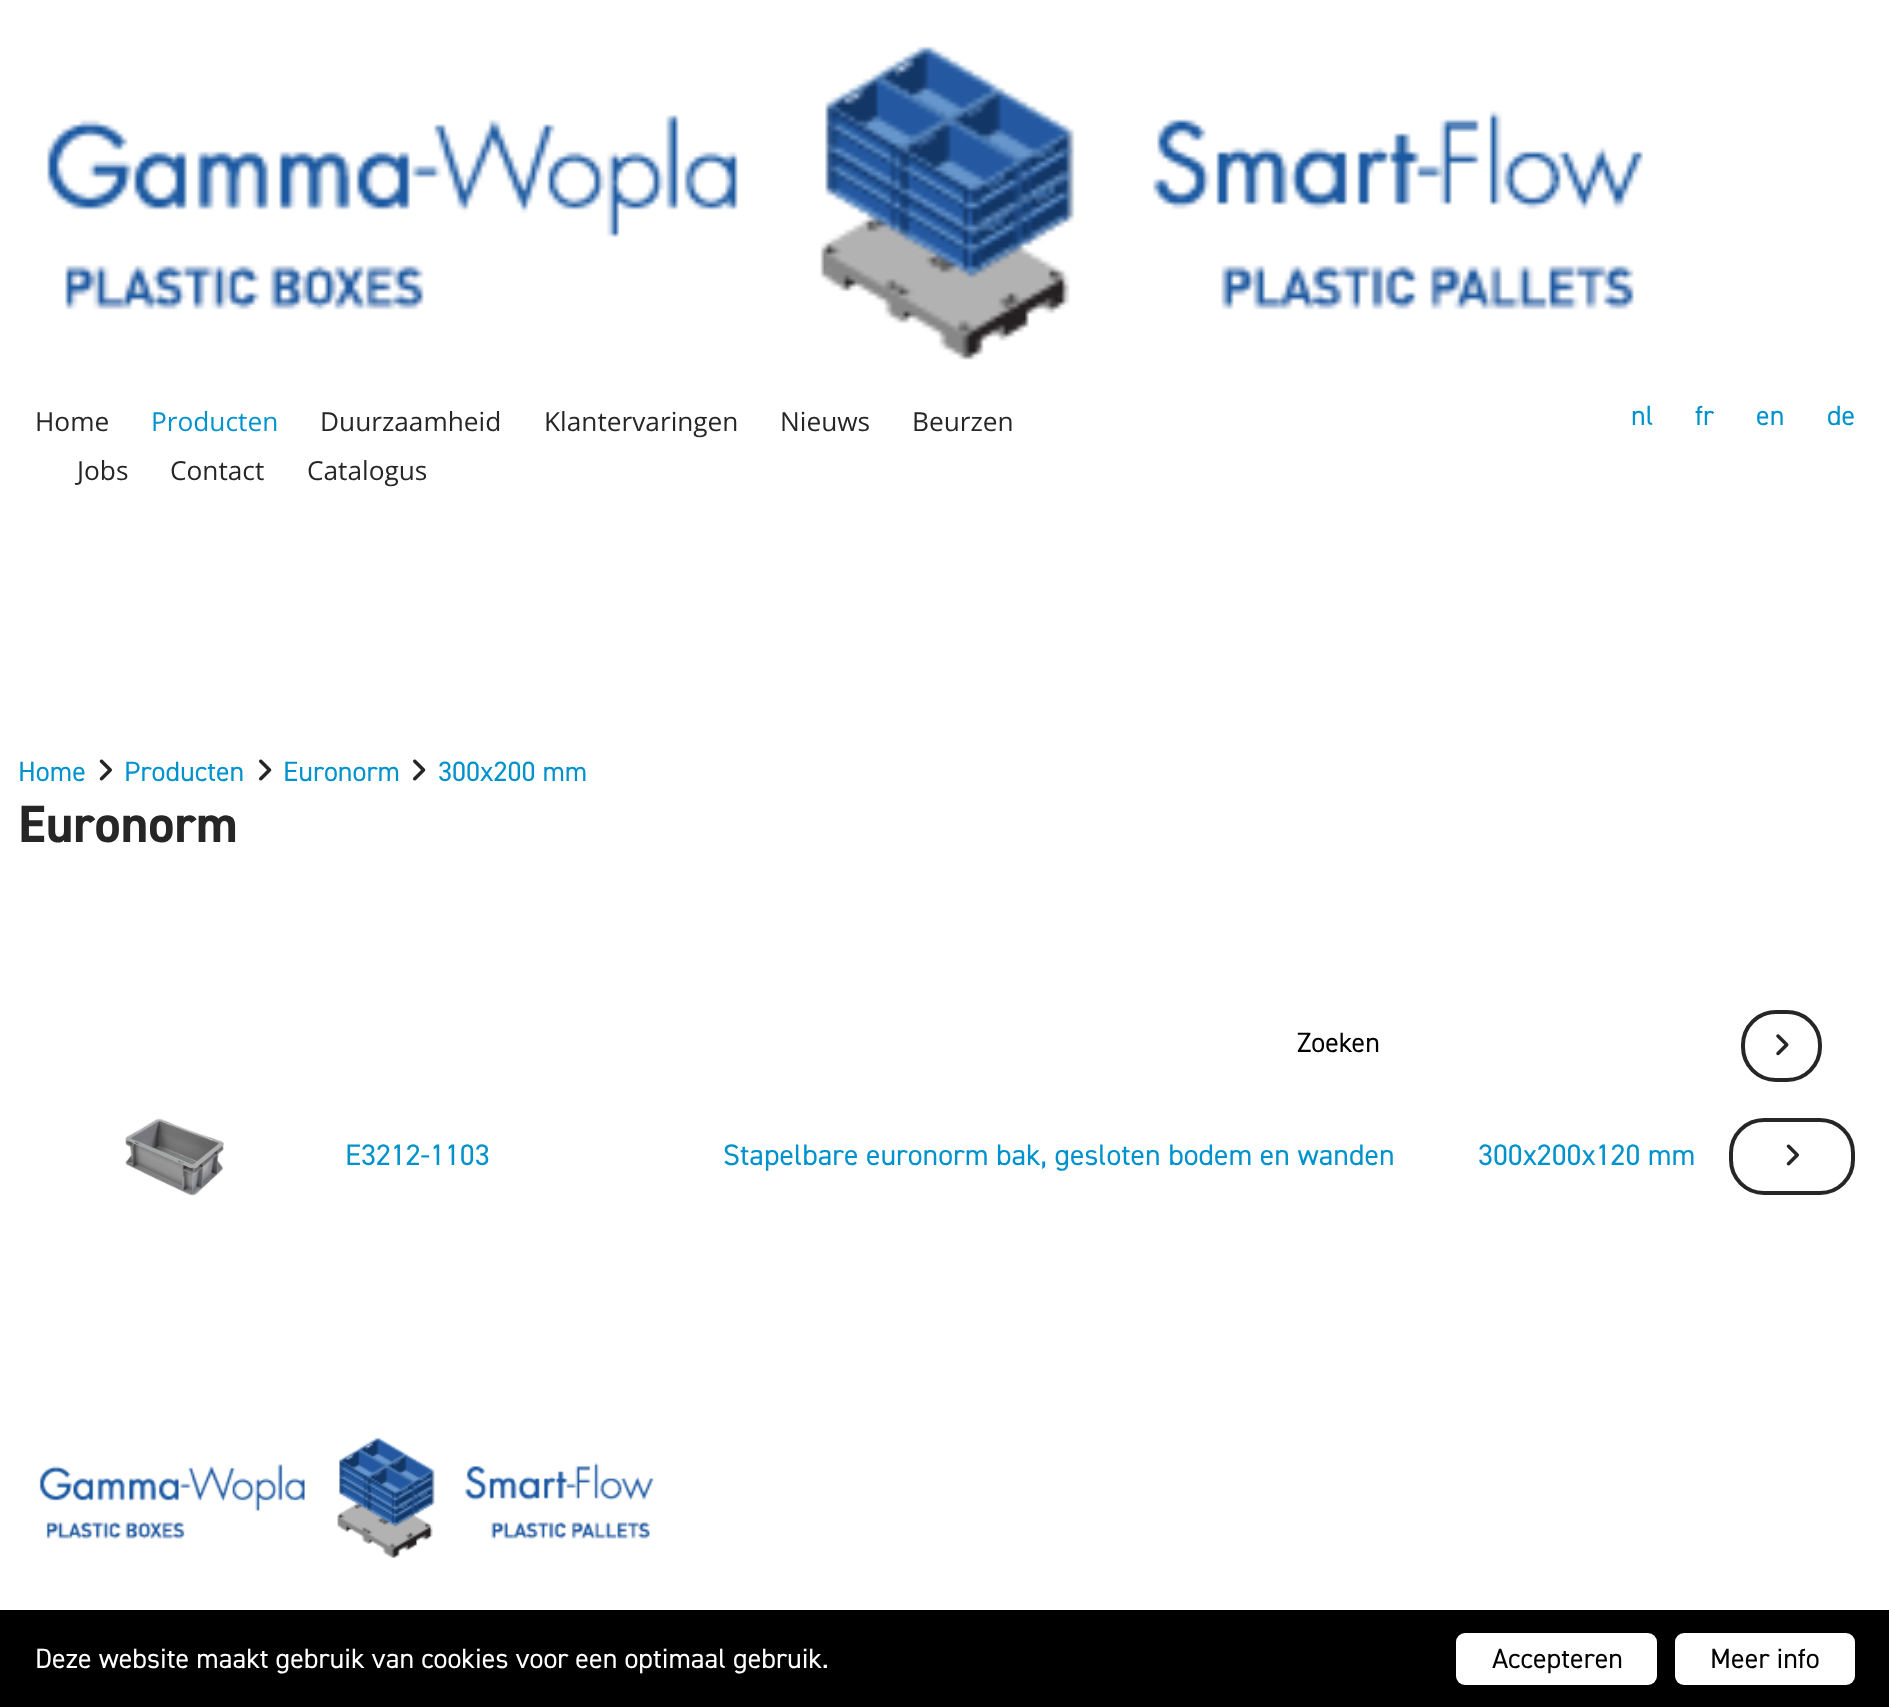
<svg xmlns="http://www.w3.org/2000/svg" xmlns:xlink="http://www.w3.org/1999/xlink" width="1889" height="1707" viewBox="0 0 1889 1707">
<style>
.cls-1{font:26.25px Open Sans;fill:#262626}
.cls-2{font:26.25px Open Sans;fill:#0092cd}
.cls-3{font:28px 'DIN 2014';fill:#0092cd}
.cls-4{font:bold 52.5px 'DIN 2014';fill:#262626}
.cls-5{font:28px 'DIN 2014';fill:#000000}
.cls-6{font:29.75px 'DIN 2014';fill:#0092cd}
.cls-7{font:28px 'DIN 2014';fill:#ffffff}
</style>
<rect width="100%" height="100%" fill="#ffffff"/>
<image xlink:href="image0.png" x="47" y="46" width="1596" height="314"/>
<image xlink:href="image1.png" x="99" y="759" width="13" height="22"/>
<image xlink:href="image2.png" x="259" y="759" width="13" height="22"/>
<image xlink:href="image2.png" x="413" y="759" width="13" height="22"/>
<rect fill="none" stroke="#262626" stroke-width="4" x="1743" y="1012" width="77" height="68" rx="33"/>
<image xlink:href="image3.png" x="1776" y="1034" width="13" height="22"/>
<image xlink:href="image4.png" x="125" y="1118" width="99" height="78"/>
<rect fill="none" stroke="#262626" stroke-width="4" x="1731" y="1120" width="122" height="73" rx="33"/>
<image xlink:href="image1.png" x="1786" y="1144" width="13" height="22"/>
<image xlink:href="image5.png" x="39" y="1438" width="615" height="120"/>
<rect fill="#000000" x="0" y="1610" width="1889" height="97"/>
<rect fill="#ffffff" x="1456" y="1633" width="201" height="52" rx="9"/>
<rect fill="#ffffff" x="1675" y="1633" width="180" height="52" rx="9"/>
<text class="cls-1" x="35" y="431">Home</text>
<text class="cls-2" x="151" y="431">Producten</text>
<text class="cls-1" x="320" y="431">Duurzaamheid</text>
<text class="cls-1" x="544" y="431">Klantervaringen</text>
<text class="cls-1" x="780" y="431">Nieuws</text>
<text class="cls-1" x="912" y="431">Beurzen</text>
<text class="cls-1" x="77" y="480">Jobs</text>
<text class="cls-1" x="170" y="480">Contact</text>
<text class="cls-1" x="307" y="480">Catalogus</text>
<text class="cls-3" x="1631" y="425">nl</text>
<text class="cls-3" x="1695" y="425">fr</text>
<text class="cls-3" x="1756" y="425">en</text>
<text class="cls-3" x="1827" y="425">de</text>
<text class="cls-3" x="18" y="781">Home</text>
<text class="cls-3" x="124" y="781">Producten</text>
<text class="cls-3" x="283" y="781">Euronorm</text>
<text class="cls-3" x="438" y="781">300x200 mm</text>
<text class="cls-4" x="18" y="842">Euronorm</text>
<text class="cls-5" x="1297" y="1052">Zoeken</text>
<text class="cls-6" x="345" y="1165">E3212-1103</text>
<text class="cls-6" x="723" y="1165">Stapelbare euronorm bak, gesloten bodem en wanden</text>
<text class="cls-6" x="1478" y="1165">300x200x120 mm</text>
<text class="cls-7" x="35" y="1668">Deze website maakt gebruik van cookies voor een optimaal gebruik.</text>
<text class="cls-5" x="1492" y="1668">Accepteren</text>
<text class="cls-5" x="1710" y="1668">Meer info</text>
</svg>
